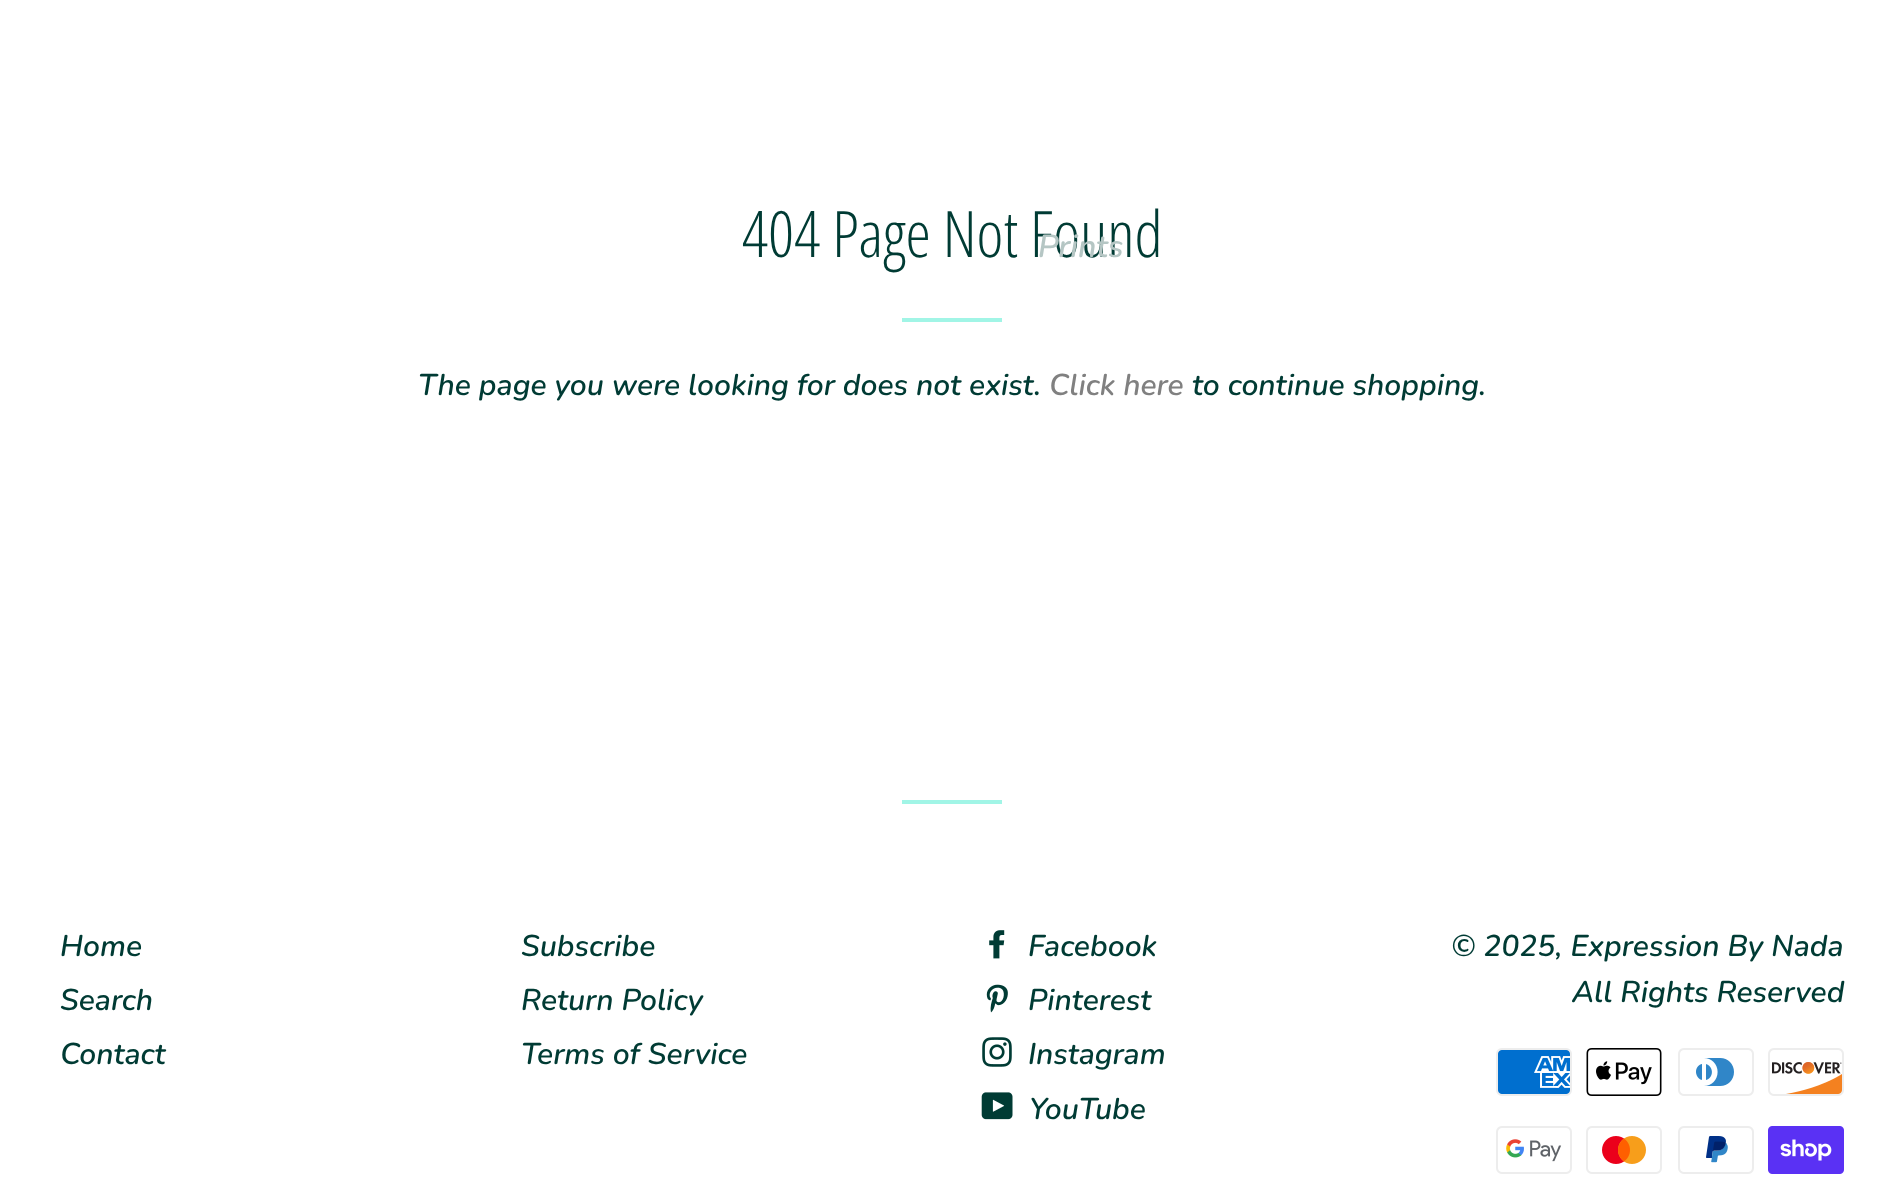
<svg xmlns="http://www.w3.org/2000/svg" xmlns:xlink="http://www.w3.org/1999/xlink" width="1903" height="1189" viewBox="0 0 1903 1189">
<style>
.cls-1{font:300 64px Open Sans Condensed;fill:#003b34}
.cls-2{font:italic 600 30px Nunito;fill:#003b34}
.cls-3{font:italic 600 30px Nunito;fill:#808080}
.cls-4{font:italic 600 32px Nunito;fill:#b5c6c4}
</style>
<rect width="100%" height="100%" fill="#ffffff"/>
<rect fill="#a1f5e6" x="902" y="318" width="100" height="4"/>
<rect fill="#a1f5e6" x="902" y="800" width="100" height="4"/>
<image xlink:href="image0.png" x="989" y="930" width="16" height="29"/>
<image xlink:href="image1.png" x="986" y="984" width="22" height="29"/>
<image xlink:href="image2.png" x="982" y="1037" width="30" height="30"/>
<image xlink:href="image3.png" x="981" y="1092" width="32" height="28"/>
<image xlink:href="image4.png" x="1496" y="1048" width="76" height="48"/>
<image xlink:href="image5.png" x="1586" y="1048" width="76" height="48"/>
<image xlink:href="image6.png" x="1678" y="1048" width="76" height="48"/>
<image xlink:href="image7.png" x="1768" y="1048" width="76" height="48"/>
<image xlink:href="image8.png" x="1496" y="1126" width="76" height="48"/>
<image xlink:href="image9.png" x="1586" y="1126" width="76" height="48"/>
<image xlink:href="image10.png" x="1678" y="1126" width="76" height="48"/>
<image xlink:href="image11.png" x="1768" y="1126" width="76" height="48"/>
<text class="cls-1" x="742" y="257">404 Page Not Found</text>
<text class="cls-2" x="418" y="395">The page you were looking for does not exist.</text>
<text class="cls-3" x="1049" y="395">Click here</text>
<text class="cls-2" x="1192" y="395">to continue shopping.</text>
<text class="cls-2"><tspan x="60" y="956">Home</tspan><tspan x="60" y="1010">Search</tspan><tspan x="60" y="1064">Contact</tspan></text>
<text class="cls-2"><tspan x="521" y="956">Subscribe</tspan><tspan x="521" y="1010">Return Policy</tspan><tspan x="521" y="1064">Terms of Service</tspan></text>
<text class="cls-2"><tspan x="1028" y="956">Facebook</tspan><tspan x="1028" y="1010">Pinterest</tspan><tspan x="1028" y="1064">Instagram</tspan></text>
<text class="cls-2" x="1029" y="1119">YouTube</text>
<text class="cls-2" x="1451" y="956">© 2025, Expression By Nada</text>
<text class="cls-2" x="1572" y="1002">All Rights Reserved</text>
<text class="cls-4" x="1038" y="257">Prints</text>
</svg>
